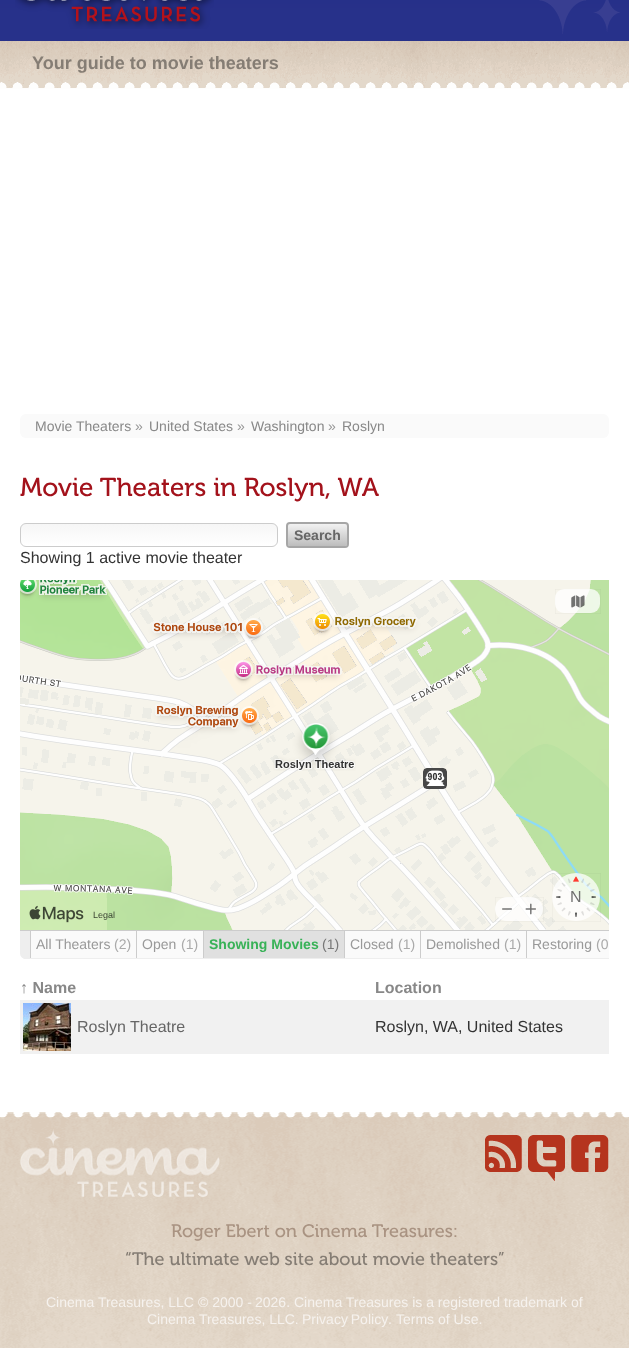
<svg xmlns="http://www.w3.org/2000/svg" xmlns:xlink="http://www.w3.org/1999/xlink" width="629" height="1348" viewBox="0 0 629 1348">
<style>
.cls-1{font:bold 18px Liberation Sans;fill:#857d74}
.cls-2{font:14px Liberation Sans;fill:#888888}
.cls-3{font:14px Liberation Sans;fill:#999999}
.cls-4{font:26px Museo;fill:#a3121b}
.cls-5{font:bold 14px Liberation Sans;fill:#666666}
.cls-6{font:16px Liberation Sans;fill:#333333}
.cls-7{font:16px Liberation Sans;fill:#70716f}
.cls-8{font:9px Liberation Sans;fill:#3b4533}
.cls-9{font:14px Liberation Sans;fill:#aaaaaa}
.cls-10{font:bold 14px Liberation Sans;fill:#38b257}
.cls-11{font:14px Liberation Sans;fill:#777777}
.cls-12{font:bold 16px Liberation Sans;fill:#888888}
.cls-13{font:16px Liberation Sans;fill:#666666}
.cls-14{font:18px Museo;fill:#a99382}
.cls-15{font:18px Museo;fill:#857d74}
.cls-16{font:14px Liberation Sans;fill:#f6f2ee}
</style>
<defs>
<clipPath id="clip1"><rect x="20" y="523" width="258" height="24" rx="6"/></clipPath>
<linearGradient id="g1" gradientUnits="userSpaceOnUse" x1="149" y1="524" x2="149" y2="546"><stop offset="0" stop-color="#f6f6f6"/><stop offset="1" stop-color="#ffffff"/></linearGradient>
<linearGradient id="g2" gradientUnits="userSpaceOnUse" x1="318" y1="524" x2="318" y2="546"><stop offset="0" stop-color="#f2f2f2"/><stop offset="1" stop-color="#bdbdbd"/></linearGradient>
<clipPath id="clip2"><rect x="20" y="113" width="589" height="1131"/></clipPath>
</defs>
<rect width="100%" height="100%" fill="#ffffff"/>
<image xlink:href="image0.png" x="0" y="0" width="629" height="41"/>
<image xlink:href="image1.png" x="15" y="0" width="199" height="29"/>
<image xlink:href="image2.png" x="539" y="0" width="81" height="34"/>
<image xlink:href="image3.png" x="0" y="41" width="629" height="48"/>
<rect fill="#fafafa" x="20" y="414" width="589" height="24" rx="6"/>
<g clip-path="url(#clip1)">
<rect fill="url(#g1)" x="20" y="524" width="258" height="22"/>
</g>
<rect fill="none" stroke="#cccccc" x="20.5" y="523.5" width="257" height="23" rx="5.5"/>
<rect fill="url(#g2)" x="288" y="524" width="59" height="22" rx="2"/>
<rect fill="none" stroke="#a6a6a6" stroke-width="2" x="287" y="523" width="61" height="24" rx="3"/>
<image xlink:href="image4.png" x="20" y="580" width="589" height="350"/>
<image xlink:href="image5.png" x="273" y="723" width="83" height="48"/>
<rect fill="none" stroke="#000000" stroke-opacity="0.05" stroke-width="0.5" x="555.25" y="589.25" width="45.5" height="24.5"/>
<rect fill="#ffffff" fill-opacity="0.75" x="555" y="589" width="45" height="24" rx="9"/>
<image xlink:href="image6.png" x="571" y="595" width="14" height="13"/>
<rect fill="none" stroke="#000000" stroke-opacity="0.05" stroke-width="0.5" x="495.25" y="897.25" width="48.5" height="24.5"/>
<rect fill="#ffffff" fill-opacity="0.75" x="495" y="897" width="48" height="24" rx="12"/>
<image xlink:href="image7.png" x="502" y="908" width="10" height="2"/>
<image xlink:href="image8.png" x="525" y="903" width="11" height="12"/>
<rect fill="none" stroke="#000000" stroke-opacity="0.05" stroke-width="0.5" x="552.25" y="873.25" width="48.5" height="48.5"/>
<circle fill="#ffffff" fill-opacity="0.75" cx="576" cy="897" r="24"/>
<image xlink:href="image9.png" x="556" y="876" width="40" height="41"/>
<image xlink:href="image10.png" x="29" y="905" width="55" height="18"/>
<path fill="#eeeeee" d="M20 930H609V959H26C22.5 959 20 956.5 20 953Z"/>
<rect fill="#cccccc" x="20" y="930" width="589" height="1"/>
<g clip-path="url(#clip2)">
<path fill="#eeeeee" d="M26 959H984C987 959 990 956 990 953C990 956 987 958 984 958H26C23 958 20 956 20 953C20 956 23 959 26 959Z"/>
</g>
<rect fill="#fafafa" x="31" y="931" width="105" height="27"/>
<rect fill="#cccccc" x="136" y="931" width="1" height="27"/>
<rect fill="#cccccc" x="30" y="931" width="1" height="27"/>
<rect fill="#fafafa" x="137" y="931" width="66" height="27"/>
<rect fill="#cccccc" x="203" y="931" width="1" height="27"/>
<rect fill="#e0e0e0" x="204" y="931" width="140" height="27"/>
<rect fill="#cccccc" x="344" y="931" width="1" height="27"/>
<rect fill="#fafafa" x="345" y="931" width="75" height="27"/>
<rect fill="#cccccc" x="420" y="931" width="1" height="27"/>
<rect fill="#fafafa" x="421" y="931" width="105" height="27"/>
<rect fill="#cccccc" x="526" y="931" width="1" height="27"/>
<rect fill="#fafafa" x="527" y="931" width="82" height="27"/>
<rect fill="#f1f1f1" x="20" y="1000" width="589" height="54"/>
<image xlink:href="image11.png" x="23" y="1003" width="48" height="48"/>
<image xlink:href="image12.png" x="0" y="1112" width="629" height="236"/>
<image xlink:href="image13.png" x="20" y="1129" width="200" height="68"/>
<image xlink:href="image14.png" x="485" y="1135" width="37" height="37"/>
<image xlink:href="image15.png" x="528" y="1135" width="37" height="46"/>
<image xlink:href="image16.png" x="571" y="1135" width="38" height="37"/>
<text class="cls-1" x="32" y="69">Your guide to movie theaters</text>
<text class="cls-2" x="35" y="431">Movie Theaters</text>
<text class="cls-3" x="135" y="431">»</text>
<text class="cls-2" x="149" y="431">United States</text>
<text class="cls-3" x="237" y="431">»</text>
<text class="cls-2" x="251" y="431">Washington</text>
<text class="cls-3" x="328" y="431">»</text>
<text class="cls-2" x="342" y="431">Roslyn</text>
<text class="cls-4" x="20" y="496">Movie Theaters in Roslyn, WA</text>
<text class="cls-5" x="294" y="540">Search</text>
<text class="cls-6" x="20" y="563">Showing 1 active movie theater</text>
<text class="cls-7" x="570" y="902">N</text>
<text class="cls-8" x="93" y="918">Legal</text>
<text class="cls-3" x="36" y="949">All Theaters</text>
<text class="cls-9" x="114" y="949">(2)</text>
<text class="cls-3" x="142" y="949">Open</text>
<text class="cls-9" x="181" y="949">(1)</text>
<text class="cls-10" x="209" y="949">Showing Movies</text>
<text class="cls-11" x="322" y="949">(1)</text>
<text class="cls-3" x="350" y="949">Closed</text>
<text class="cls-9" x="398" y="949">(1)</text>
<text class="cls-3" x="426" y="949">Demolished</text>
<text class="cls-9" x="504" y="949">(1)</text>
<text class="cls-3" x="532" y="949">Restoring</text>
<text class="cls-9" x="596" y="949">(0</text>
<text class="cls-12" x="20" y="993">↑ Name</text>
<text class="cls-12" x="375" y="993">Location</text>
<text class="cls-13" x="77" y="1032">Roslyn Theatre</text>
<text class="cls-6" x="375" y="1032">Roslyn, WA, United States</text>
<text class="cls-14" x="171" y="1237">Roger Ebert on Cinema Treasures:</text>
<text class="cls-15" x="125" y="1265">“The ultimate web site about movie theaters”</text>
<text class="cls-16" x="46" y="1307">Cinema Treasures, LLC</text>
<text class="cls-16" x="198" y="1307">© 2000 -</text>
<text class="cls-16" x="255" y="1307">2026. Cinema Treasures is a registered trademark of</text>
<text class="cls-16" x="147" y="1324">Cinema Treasures, LLC.</text>
<text class="cls-16" x="302" y="1324" word-spacing="-1">Privacy Policy</text>
<text class="cls-16" x="388" y="1324">.</text>
<text class="cls-16" x="396" y="1324">Terms of Use.</text>
</svg>
